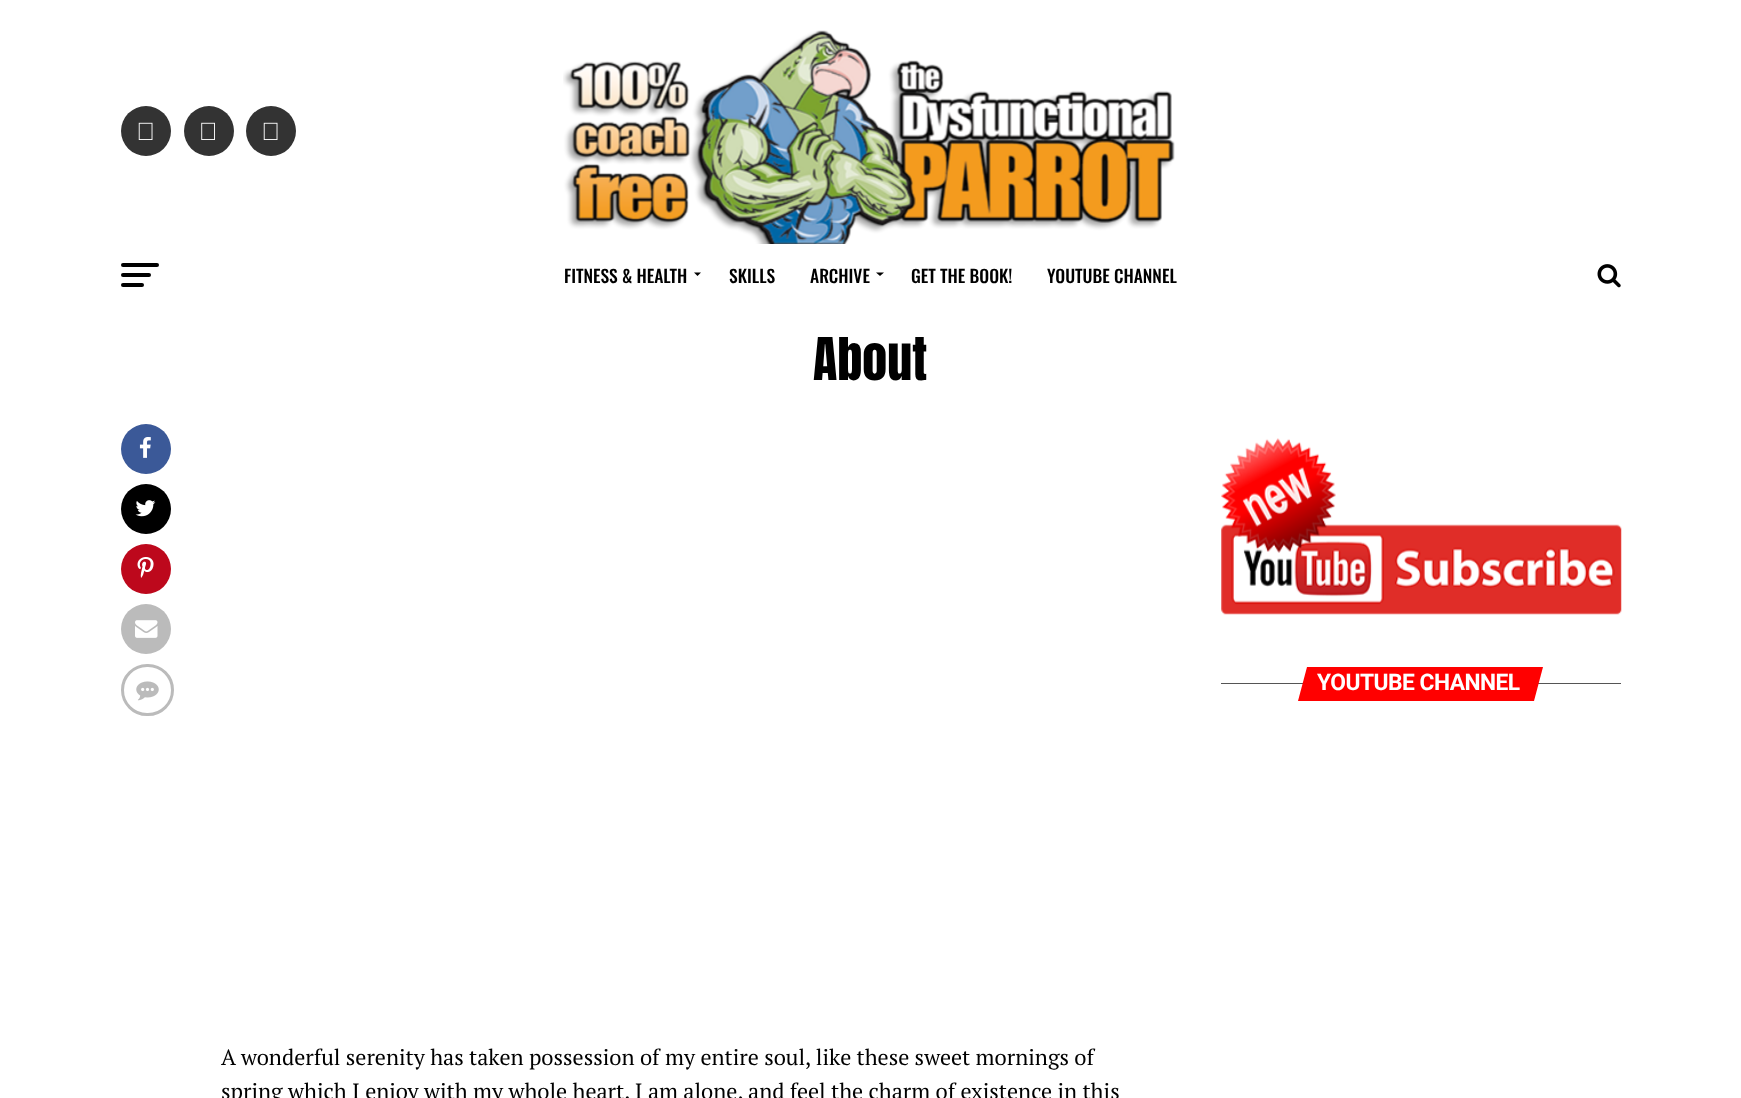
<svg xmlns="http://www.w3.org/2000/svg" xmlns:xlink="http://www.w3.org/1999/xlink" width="1741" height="1098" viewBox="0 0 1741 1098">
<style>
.cls-1{font:500 17.5px Oswald;fill:#000000}
.cls-2{font:50px Anton;fill:#000000}
.cls-3{font:bold 22.75px Roboto;letter-spacing:-0.5px;fill:#ffffff}
.cls-4{font:22px PT Serif;fill:#000000}
</style>
<rect width="100%" height="100%" fill="#ffffff"/>
<circle fill="#333333" cx="146" cy="131" r="25"/>
<image xlink:href="image0.png" x="138" y="122" width="15" height="18"/>
<circle fill="#333333" cx="209" cy="131" r="25"/>
<image xlink:href="image1.png" x="201" y="122" width="14" height="18"/>
<circle fill="#333333" cx="271" cy="131" r="25"/>
<image xlink:href="image0.png" x="263" y="122" width="15" height="18"/>
<image xlink:href="image2.png" x="563" y="30" width="612" height="214"/>
<rect fill="#000000" x="121" y="263" width="38" height="4" rx="2"/>
<rect fill="#000000" x="121" y="273" width="30" height="4" rx="2"/>
<rect fill="#000000" x="121" y="283" width="23" height="4" rx="2"/>
<path fill="#000000" d="M694 272.5H701L697.5 276Z"/>
<path fill="#000000" d="M876 272.5H884L880 276Z"/>
<image xlink:href="image3.png" x="1597" y="264" width="24" height="24"/>
<image xlink:href="image4.png" x="1221" y="438" width="401" height="177"/>
<rect fill="#555555" x="1221" y="683" width="400" height="1"/>
<path fill="#ff0000" d="M1307 667H1543L1534 701H1298Z"/>
<circle fill="#3b5998" cx="146" cy="449" r="25"/>
<image xlink:href="image5.png" x="139" y="437" width="12" height="21"/>
<circle fill="#000000" cx="146" cy="509" r="25"/>
<image xlink:href="image6.png" x="135" y="500" width="21" height="17"/>
<circle fill="#bd081c" cx="146" cy="569" r="25"/>
<image xlink:href="image7.png" x="137" y="557" width="17" height="21"/>
<circle fill="#bbbbbb" cx="146" cy="629" r="25"/>
<image xlink:href="image8.png" x="135" y="620" width="23" height="18"/>
<rect fill="none" stroke="#bbbbbb" stroke-width="3" x="122.5" y="665.5" width="50" height="49" rx="24.5"/>
<image xlink:href="image9.png" x="136" y="681" width="23" height="20"/>
<text class="cls-1" x="564" y="283">FITNESS &amp; HEALTH</text>
<text class="cls-1" x="729" y="283">SKILLS</text>
<text class="cls-1" x="810" y="283">ARCHIVE</text>
<text class="cls-1" x="911" y="283">GET THE BOOK!</text>
<text class="cls-1" x="1047" y="283">YOUTUBE CHANNEL</text>
<text class="cls-2" x="813" y="380">About</text>
<text class="cls-3" x="1317" y="690">YOUTUBE CHANNEL</text>
<text class="cls-4"><tspan x="221" y="1065">A wonderful serenity has taken possession of my entire soul, like these sweet mornings of</tspan><tspan x="221" y="1099">spring which I enjoy with my whole heart. I am alone, and feel the charm of existence in this</tspan></text>
</svg>
